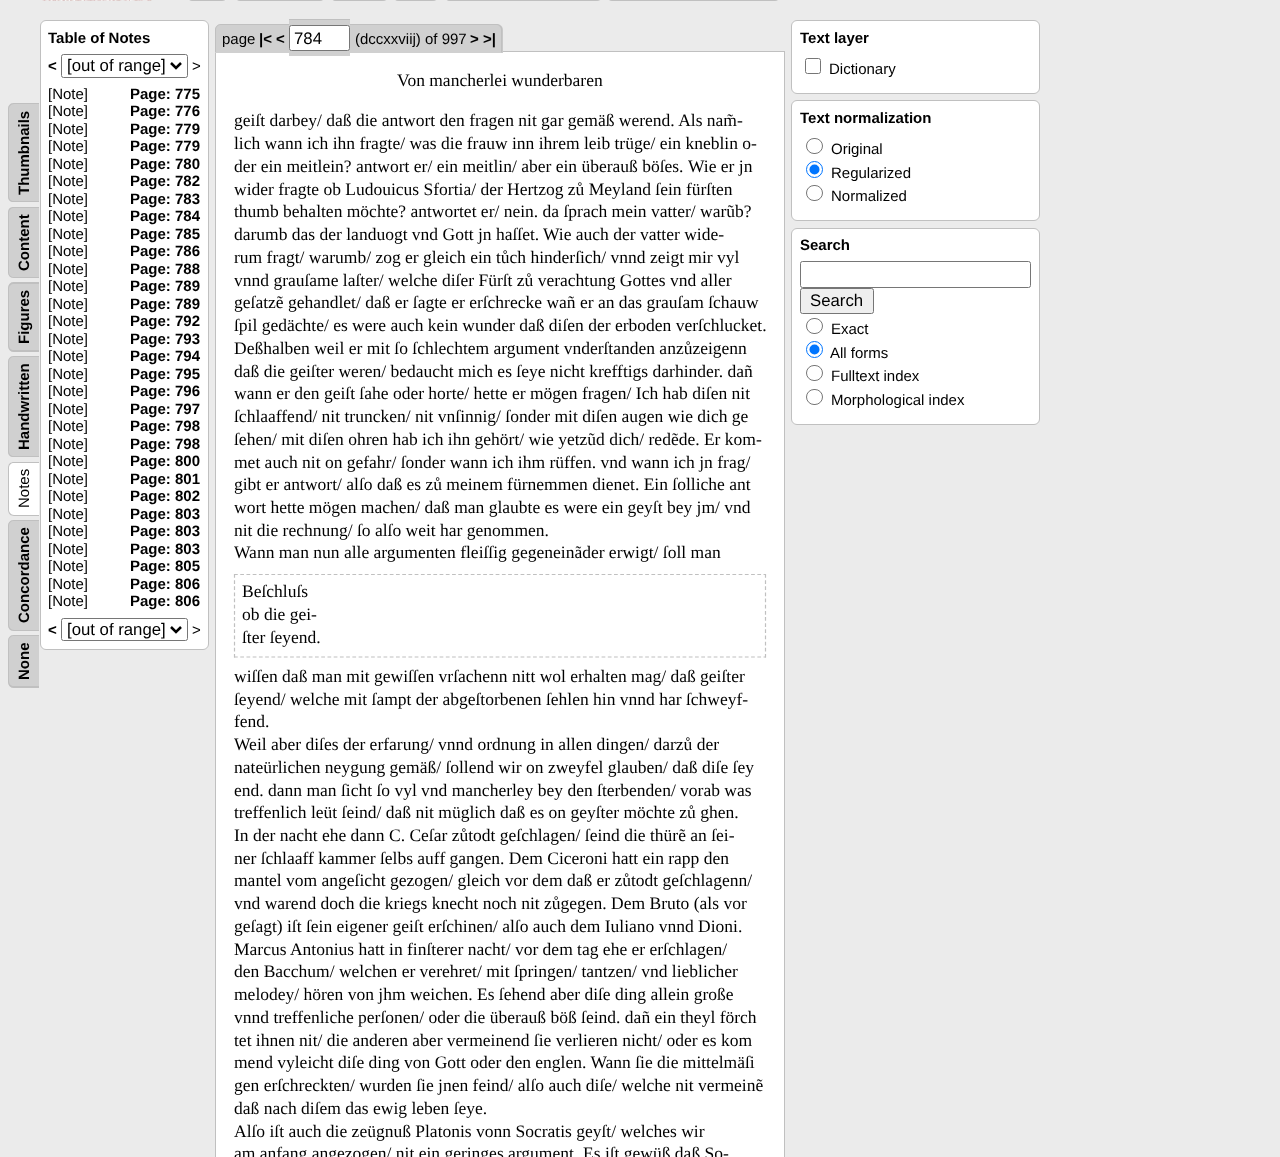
<svg xmlns="http://www.w3.org/2000/svg" xmlns:xlink="http://www.w3.org/1999/xlink" width="1280" height="1157" viewBox="0 0 1280 1157">
<style>
.cls-1{font:bold 15px Liberation Sans;fill:#000000}
.cls-2{font:15px Liberation Sans;fill:#000000}
.cls-3{font:16.75px Liberation Sans;fill:#000000}
.cls-4{font:17.5px Liberation Serif;fill:#000000}
</style>
<rect width="100%" height="100%" fill="#ebebeb"/>
<image xlink:href="image0.png" x="42" y="0" width="110" height="1"/>
<path fill="#ffffff" d="M186-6H229V-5C229-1.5 226.5 1 223 1H192C188.5 1 186-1.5 186-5Z"/>
<path fill="#d0d0d0" d="M330-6H389V-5C389-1.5 386.5 1 383 1H336C332.5 1 330-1.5 330-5Z"/>
<path fill="#d0d0d0" d="M393-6H439V-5C439-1.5 436.5 1 433 1H399C395.5 1 393-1.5 393-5Z"/>
<path fill="#d0d0d0" d="M444-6H603V-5C603-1.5 600.5 1 597 1H450C446.5 1 444-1.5 444-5Z"/>
<path fill="#c0c0c0" fill-rule="evenodd" d="M186-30H229V-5C229-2 226 1 222 1H192C189 1 186-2 186-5ZM188-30H228V-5C228-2 225 0 222 0H192C190 0 188-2 188-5Z"/>
<path fill="#c0c0c0" fill-rule="evenodd" d="M234-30H326V-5C326-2 323 1 320 1H240C237 1 234-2 234-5ZM235-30H325V-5C325-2 323 0 320 0H240C237 0 235-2 235-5Z"/>
<path fill="#c0c0c0" fill-rule="evenodd" d="M330-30H389V-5C389-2 386 1 382 1H336C333 1 330-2 330-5ZM331-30H388V-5C388-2 385 0 382 0H336C333 0 331-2 331-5Z"/>
<path fill="#c0c0c0" fill-rule="evenodd" d="M392-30H439V-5C439-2 436 1 432 1H399C395 1 392-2 392-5ZM394-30H438V-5C438-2 435 0 432 0H399C396 0 394-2 394-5Z"/>
<path fill="#c0c0c0" fill-rule="evenodd" d="M444-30H602V-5C602-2 600 1 596 1H450C447 1 444-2 444-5ZM445-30H601V-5C601-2 599 0 596 0H450C447 0 445-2 445-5Z"/>
<path fill="#c0c0c0" fill-rule="evenodd" d="M606-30H781V-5C781-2 778 1 775 1H612C609 1 606-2 606-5ZM608-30H780V-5C780-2 778 0 775 0H612C610 0 608-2 608-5Z"/>
<path fill="#d0d0d0" d="M8 196V109C8 106 10 103 14 103H39V202H14C10 202 8 200 8 196Z"/>
<path fill="#c0c0c0" fill-rule="evenodd" d="M8 196V109C8 106 10 103 14 103H39V202H14C10 202 8 200 8 196ZM9 196V109C9 107 11 104 14 104H39V201H14C11 201 9 199 9 196Z"/>
<path fill="#d0d0d0" d="M8 272V213C8 209 10 207 14 207H39V278H14C10 278 8 275 8 272Z"/>
<path fill="#c0c0c0" fill-rule="evenodd" d="M8 272V213C8 209 10 207 14 207H39V278H14C10 278 8 275 8 272ZM9 272V213C9 210 11 208 14 208H39V277H14C11 277 9 275 9 272Z"/>
<path fill="#d0d0d0" d="M8 345V289C8 285 10 282 14 282H39V352H14C10 352 8 349 8 345Z"/>
<path fill="#c0c0c0" fill-rule="evenodd" d="M8 345V289C8 285 10 282 14 282H39V352H14C10 352 8 349 8 345ZM9 345V289C9 286 11 284 14 284H39V350H14C11 350 9 348 9 345Z"/>
<path fill="#d0d0d0" d="M8 451V362C8 359 10 356 14 356H39V457H14C10 457 8 455 8 451Z"/>
<path fill="#c0c0c0" fill-rule="evenodd" d="M8 451V362C8 359 10 356 14 356H39V457H14C10 457 8 455 8 451ZM9 451V362C9 359 11 357 14 357H39V456H14C11 456 9 454 9 451Z"/>
<path fill="#ffffff" d="M8 510V468C8 464 10 462 14 462H39V516H14C10 516 8 513 8 510Z"/>
<path fill="#c0c0c0" fill-rule="evenodd" d="M8 510V468C8 464 10 462 14 462H39V516H14C10 516 8 513 8 510ZM9 510V468C9 465 11 463 14 463H39V515H14C11 515 9 512 9 510Z"/>
<path fill="#d0d0d0" d="M8 625V526C8 523 10 520 14 520H39V631H14C10 631 8 628 8 625Z"/>
<path fill="#c0c0c0" fill-rule="evenodd" d="M8 625V526C8 523 10 520 14 520H39V631H14C10 631 8 628 8 625ZM9 625V526C9 523 11 521 14 521H39V630H14C11 630 9 627 9 625Z"/>
<path fill="#d0d0d0" d="M8 681V641C8 638 10 635 14 635H39V688H14C10 688 8 685 8 681Z"/>
<path fill="#c0c0c0" fill-rule="evenodd" d="M8 681V641C8 638 10 635 14 635H39V688H14C10 688 8 685 8 681ZM9 681V641C9 638 11 636 14 636H39V686H14C11 686 9 684 9 681Z"/>
<rect fill="#ffffff" stroke="#c0c0c0" x="40.5" y="20.5" width="168" height="629" rx="5.5"/>
<rect fill="none" stroke="#767676" x="61.5" y="54.5" width="126" height="23" rx="2"/>
<path fill="none" stroke="#000000" stroke-width="2.5" d="M171 63L176 68L181 63"/>
<rect fill="none" stroke="#767676" x="61.5" y="618.5" width="126" height="22" rx="2"/>
<path fill="none" stroke="#000000" stroke-width="2.5" d="M171 627L176 632L181 627"/>
<rect fill="#ffffff" stroke="#c0c0c0" x="215.5" y="51.5" width="569" height="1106"/>
<path fill="#d0d0d0" d="M221 24H259V53H215V30C215 26.5 217.5 24 221 24Z"/>
<path fill="#c0c0c0" fill-rule="evenodd" d="M221 24H259V52H215V30C215 27 218 24 221 24ZM221 25H259V52H216V30C216 27 218 25 221 25Z"/>
<rect fill="#d0d0d0" x="259" y="25" width="14" height="28"/>
<rect fill="#c0c0c0" x="259" y="24" width="14" height="1"/>
<rect fill="#d0d0d0" x="273" y="24" width="3" height="29"/>
<rect fill="#c0c0c0" x="273" y="24" width="12" height="1"/>
<rect fill="#d0d0d0" x="276" y="25" width="9" height="28"/>
<rect fill="#d0d0d0" x="285" y="24" width="4" height="29"/>
<rect fill="#c0c0c0" x="285" y="24" width="4" height="1"/>
<rect fill="#d0d0d0" x="289" y="20" width="61" height="36"/>
<rect fill="#c0c0c0" x="289" y="19" width="61" height="1"/>
<rect fill="#d0d0d0" x="350" y="24" width="5" height="29"/>
<rect fill="#c0c0c0" x="350" y="24" width="129" height="1"/>
<rect fill="#d0d0d0" x="355" y="25" width="124" height="28"/>
<rect fill="#d0d0d0" x="479" y="24" width="5" height="29"/>
<rect fill="#c0c0c0" x="479" y="24" width="5" height="1"/>
<path fill="#d0d0d0" d="M484 24H497C500.5 24 503 26.5 503 30V53H484Z"/>
<path fill="#c0c0c0" fill-rule="evenodd" d="M484 24H496C499.5 24 502.5 26.5 502.5 30V52.5H484ZM484 25H496C499 25 501 27 501 30V52.5H484Z"/>
<rect fill="#ffffff" stroke="#767676" x="289.5" y="25.5" width="60" height="25" rx="2"/>
<path fill="none" stroke="#c0c0c0" stroke-width="1.2" stroke-dasharray="3.75 2.48" d="M234 574.5H766"/>
<path fill="none" stroke="#c0c0c0" stroke-width="1.2" stroke-dasharray="3.75 2.4" d="M765.5 574V657.5"/>
<path fill="none" stroke="#c0c0c0" stroke-width="1.2" stroke-dasharray="3.75 2.48" d="M234 657H766"/>
<path fill="none" stroke="#c0c0c0" stroke-width="1.2" stroke-dasharray="3.75 2.4" d="M234.5 574V657.5"/>
<rect fill="#ffffff" stroke="#c0c0c0" x="791.5" y="20.5" width="248" height="73" rx="5.5"/>
<rect fill="none" stroke="#767676" x="805.5" y="58.5" width="15" height="15" rx="2"/>
<rect fill="#ffffff" stroke="#c0c0c0" x="791.5" y="100.5" width="248" height="120" rx="5.5"/>
<rect fill="none" stroke="#767676" x="806.5" y="138.5" width="16" height="15" rx="7.5"/>
<circle fill="none" stroke="#0075ff" cx="814.5" cy="169.5" r="8"/>
<circle fill="#0075ff" cx="814.5" cy="169.5" r="5"/>
<rect fill="none" stroke="#767676" x="806.5" y="185.5" width="16" height="15" rx="7.5"/>
<rect fill="#ffffff" stroke="#c0c0c0" x="791.5" y="228.5" width="248" height="196" rx="5.5"/>
<rect fill="none" stroke="#767676" x="800.5" y="261.5" width="230" height="26" rx="2"/>
<rect fill="#efefef" stroke="#767676" x="800.5" y="288.5" width="73" height="25" rx="2"/>
<rect fill="none" stroke="#767676" x="806.5" y="318.5" width="16" height="15" rx="7.5"/>
<circle fill="none" stroke="#0075ff" cx="814.5" cy="349.5" r="8"/>
<circle fill="#0075ff" cx="814.5" cy="349.5" r="5"/>
<rect fill="none" stroke="#767676" x="806.5" y="365.5" width="16" height="15" rx="7.5"/>
<rect fill="none" stroke="#767676" x="806.5" y="389.5" width="16" height="15" rx="7.5"/>
<text class="cls-1" x="29" y="195" transform="rotate(-90 29 195)">Thumbnails</text>
<text class="cls-1" x="29" y="271" transform="rotate(-90 29 271)">Content</text>
<text class="cls-1" x="29" y="344" transform="rotate(-90 29 344)">Figures</text>
<text class="cls-1" x="29" y="450" transform="rotate(-90 29 450)">Handwritten</text>
<text class="cls-2" x="29" y="508" transform="rotate(-90 29 508)">Notes</text>
<text class="cls-1" x="29" y="623" transform="rotate(-90 29 623)">Concordance</text>
<text class="cls-1" x="29" y="680" transform="rotate(-90 29 680)">None</text>
<text class="cls-1"><tspan x="48" y="43">Table of Notes</tspan><tspan x="48" y="71">&lt;</tspan></text>
<text class="cls-3" x="67" y="71">[out of range]</text>
<text class="cls-2" x="192" y="71">&gt;</text>
<text class="cls-2" x="48" y="99">[Note]</text>
<text class="cls-1" x="130" y="99">Page: 775</text>
<text class="cls-2" x="48" y="116">[Note]</text>
<text class="cls-1" x="130" y="116">Page: 776</text>
<text class="cls-2" x="48" y="134">[Note]</text>
<text class="cls-1" x="130" y="134">Page: 779</text>
<text class="cls-2" x="48" y="151">[Note]</text>
<text class="cls-1" x="130" y="151">Page: 779</text>
<text class="cls-2" x="48" y="169">[Note]</text>
<text class="cls-1" x="130" y="169">Page: 780</text>
<text class="cls-2" x="48" y="186">[Note]</text>
<text class="cls-1" x="130" y="186">Page: 782</text>
<text class="cls-2" x="48" y="204">[Note]</text>
<text class="cls-1" x="130" y="204">Page: 783</text>
<text class="cls-2" x="48" y="221">[Note]</text>
<text class="cls-1" x="130" y="221">Page: 784</text>
<text class="cls-2" x="48" y="239">[Note]</text>
<text class="cls-1" x="130" y="239">Page: 785</text>
<text class="cls-2" x="48" y="256">[Note]</text>
<text class="cls-1" x="130" y="256">Page: 786</text>
<text class="cls-2" x="48" y="274">[Note]</text>
<text class="cls-1" x="130" y="274">Page: 788</text>
<text class="cls-2" x="48" y="291">[Note]</text>
<text class="cls-1" x="130" y="291">Page: 789</text>
<text class="cls-2" x="48" y="309">[Note]</text>
<text class="cls-1" x="130" y="309">Page: 789</text>
<text class="cls-2" x="48" y="326">[Note]</text>
<text class="cls-1" x="130" y="326">Page: 792</text>
<text class="cls-2" x="48" y="344">[Note]</text>
<text class="cls-1" x="130" y="344">Page: 793</text>
<text class="cls-2" x="48" y="361">[Note]</text>
<text class="cls-1" x="130" y="361">Page: 794</text>
<text class="cls-2" x="48" y="379">[Note]</text>
<text class="cls-1" x="130" y="379">Page: 795</text>
<text class="cls-2" x="48" y="396">[Note]</text>
<text class="cls-1" x="130" y="396">Page: 796</text>
<text class="cls-2" x="48" y="414">[Note]</text>
<text class="cls-1" x="130" y="414">Page: 797</text>
<text class="cls-2" x="48" y="431">[Note]</text>
<text class="cls-1" x="130" y="431">Page: 798</text>
<text class="cls-2" x="48" y="449">[Note]</text>
<text class="cls-1" x="130" y="449">Page: 798</text>
<text class="cls-2" x="48" y="466">[Note]</text>
<text class="cls-1" x="130" y="466">Page: 800</text>
<text class="cls-2" x="48" y="484">[Note]</text>
<text class="cls-1" x="130" y="484">Page: 801</text>
<text class="cls-2" x="48" y="501">[Note]</text>
<text class="cls-1" x="130" y="501">Page: 802</text>
<text class="cls-2" x="48" y="519">[Note]</text>
<text class="cls-1" x="130" y="519">Page: 803</text>
<text class="cls-2" x="48" y="536">[Note]</text>
<text class="cls-1" x="130" y="536">Page: 803</text>
<text class="cls-2" x="48" y="554">[Note]</text>
<text class="cls-1" x="130" y="554">Page: 803</text>
<text class="cls-2" x="48" y="571">[Note]</text>
<text class="cls-1" x="130" y="571">Page: 805</text>
<text class="cls-2" x="48" y="589">[Note]</text>
<text class="cls-1" x="130" y="589">Page: 806</text>
<text class="cls-2" x="48" y="606">[Note]</text>
<text class="cls-1" x="130" y="606">Page: 806</text>
<text class="cls-1" x="48" y="635">&lt;</text>
<text class="cls-3" x="67" y="635">[out of range]</text>
<text class="cls-2" x="192" y="635">&gt;</text>
<text class="cls-2" x="222" y="44">page</text>
<text class="cls-1" x="259" y="44">|&lt; &lt;</text>
<text class="cls-3" x="294" y="44">784</text>
<text class="cls-2" x="355" y="44">(dccxxviĳ) of 997</text>
<text class="cls-1" x="470" y="44">&gt; &gt;|</text>
<text class="cls-4" x="397" y="86">Von mancherlei wunderbaren</text>
<text class="cls-4"><tspan x="234" y="126">geiſt darbey/ daß die antwort den fragen nit gar gemäß werend. Als nam̃-</tspan><tspan x="234" y="149">lich wann ich ihn fragte/ was die frauw inn ihrem leib trüge/ ein kneblin o-</tspan><tspan x="234" y="172">der ein meitlein? antwort er/ ein meitlin/ aber ein überauß böſes.</tspan></text>
<text class="cls-4" x="688" y="172">Wie er jn</text>
<text class="cls-4"><tspan x="234" y="195">wider fragte ob Ludouicus Sfortia/ der Hertzog zů Meyland ſein fürſten</tspan><tspan x="234" y="217">thumb behalten möchte? antwortet er/ nein. da ſprach mein vatter/ warũb?</tspan><tspan x="234" y="240">darumb das der landuogt vnd Gott jn haſſet.</tspan></text>
<text class="cls-4" x="543" y="240">Wie auch der vatter wide-</text>
<text class="cls-4"><tspan x="234" y="263">rum fragt/ warumb/ zog er gleich ein tůch hinderſich/ vnnd zeigt mir vyl</tspan><tspan x="234" y="286">vnnd grauſame laſter/ welche diſer Fürſt zů verachtung Gottes vnd aller</tspan><tspan x="234" y="308">geſatzẽ gehandlet/ daß er ſagte er erſchrecke wañ er an das grauſam ſchauw</tspan><tspan x="234" y="331">ſpil gedächte/ es were auch kein wunder daß diſen der erboden verſchlucket.</tspan><tspan x="234" y="354">Deßhalben weil er mit ſo ſchlechtem argument vnderſtanden anzůzeigenn</tspan><tspan x="234" y="377">daß die geiſter weren/ bedaucht mich es ſeye nicht krefftigs darhinder. dañ</tspan><tspan x="234" y="399">wann er den geiſt ſahe oder horte/ hette er mögen fragen/ Ich hab diſen nit</tspan><tspan x="234" y="422">ſchlaaffend/ nit truncken/ nit vnſinnig/ ſonder mit diſen augen wie dich ge</tspan><tspan x="234" y="445">ſehen/ mit diſen ohren hab ich ihn gehört/ wie yetzũd dich/ redẽde. Er kom-</tspan><tspan x="234" y="468">met auch nit on gefahr/ ſonder wann ich ihm rüffen. vnd wann ich jn frag/</tspan><tspan x="234" y="490">gibt er antwort/ alſo daß es zů meinem fürnemmen dienet. Ein ſolliche ant</tspan><tspan x="234" y="513">wort hette mögen machen/ daß man glaubte es were ein geyſt bey jm/ vnd</tspan><tspan x="234" y="536">nit die rechnung/ ſo alſo weit har genommen.</tspan><tspan x="234" y="558">Wann man nun alle argumenten fleiſſig gegeneinãder erwigt/ ſoll man</tspan></text>
<text class="cls-4"><tspan x="242" y="597">Beſchluſs</tspan><tspan x="242" y="620">ob die gei-</tspan><tspan x="242" y="643">ſter ſeyend.</tspan></text>
<text class="cls-4"><tspan x="234" y="682">wiſſen daß man mit gewiſſen vrſachenn nitt wol erhalten mag/ daß geiſter</tspan><tspan x="234" y="705">ſeyend/ welche mit ſampt der abgeſtorbenen ſehlen hin vnnd har ſchweyf-</tspan><tspan x="234" y="727">fend.</tspan><tspan x="234" y="750">Weil aber diſes der erfarung/ vnnd ordnung in allen dingen/ darzů der</tspan><tspan x="234" y="773">nateürlichen neygung gemäß/ ſollend wir on zweyfel glauben/ daß diſe ſey</tspan><tspan x="234" y="796">end. dann man ſicht ſo vyl vnd mancherley bey den ſterbenden/ vorab was</tspan><tspan x="234" y="818">treffenlich leüt ſeind/ daß nit müglich daß es on geyſter möchte zů ghen.</tspan><tspan x="234" y="841">In der nacht ehe dann C. Ceſar zůtodt geſchlagen/ ſeind die thürẽ an ſei-</tspan><tspan x="234" y="864">ner ſchlaaff kammer ſelbs auff gangen. Dem Ciceroni hatt ein rapp den</tspan><tspan x="234" y="886">mantel vom angeſicht gezogen/ gleich vor dem daß er zůtodt geſchlagenn/</tspan><tspan x="234" y="909">vnd warend doch die kriegs knecht noch nit zůgegen. Dem Bruto (als vor</tspan><tspan x="234" y="932">geſagt) iſt ſein eigener geiſt erſchinen/ alſo auch dem Iuliano vnnd Dioni.</tspan><tspan x="234" y="955">Marcus Antonius hatt in finſterer nacht/ vor dem tag ehe er erſchlagen/</tspan><tspan x="234" y="977">den Bacchum/ welchen er verehret/ mit ſpringen/ tantzen/ vnd lieblicher</tspan><tspan x="234" y="1000">melodey/ hören von jhm weichen. Es ſehend aber diſe ding allein große</tspan><tspan x="234" y="1023">vnnd treffenliche perſonen/ oder die überauß böß ſeind. dañ ein theyl förch</tspan><tspan x="234" y="1046">tet ihnen nit/ die anderen aber vermeinend ſie verlieren nicht/ oder es kom</tspan><tspan x="234" y="1068">mend vyleicht diſe ding von Gott oder den englen. Wann ſie die mittelmäſi</tspan><tspan x="234" y="1091">gen erſchreckten/ wurden ſie jnen feind/ alſo auch diſe/ welche nit vermeinẽ</tspan><tspan x="234" y="1114">daß nach diſem das ewig leben ſeye.</tspan><tspan x="234" y="1137">Alſo iſt auch die zeügnuß Platonis vonn Socratis geyſt/ welches wir</tspan><tspan x="234" y="1159">am anfang angezogen/ nit ein geringes argument</tspan></text>
<text class="cls-4" x="583" y="1159">Es iſt gewüß daß So-</text>
<text class="cls-1" x="800" y="43">Text layer</text>
<text class="cls-2" x="829" y="74">Dictionary</text>
<text class="cls-1" x="800" y="123">Text normalization</text>
<text class="cls-2"><tspan x="831" y="154">Original</tspan><tspan x="831" y="178">Regularized</tspan><tspan x="831" y="201">Normalized</tspan></text>
<text class="cls-1" x="800" y="250">Search</text>
<text class="cls-3" x="810" y="306">Search</text>
<text class="cls-2" x="831" y="334">Exact</text>
<text class="cls-2" x="830" y="358">All forms</text>
<text class="cls-2"><tspan x="831" y="381">Fulltext index</tspan><tspan x="831" y="405">Morphological index</tspan></text>
</svg>
